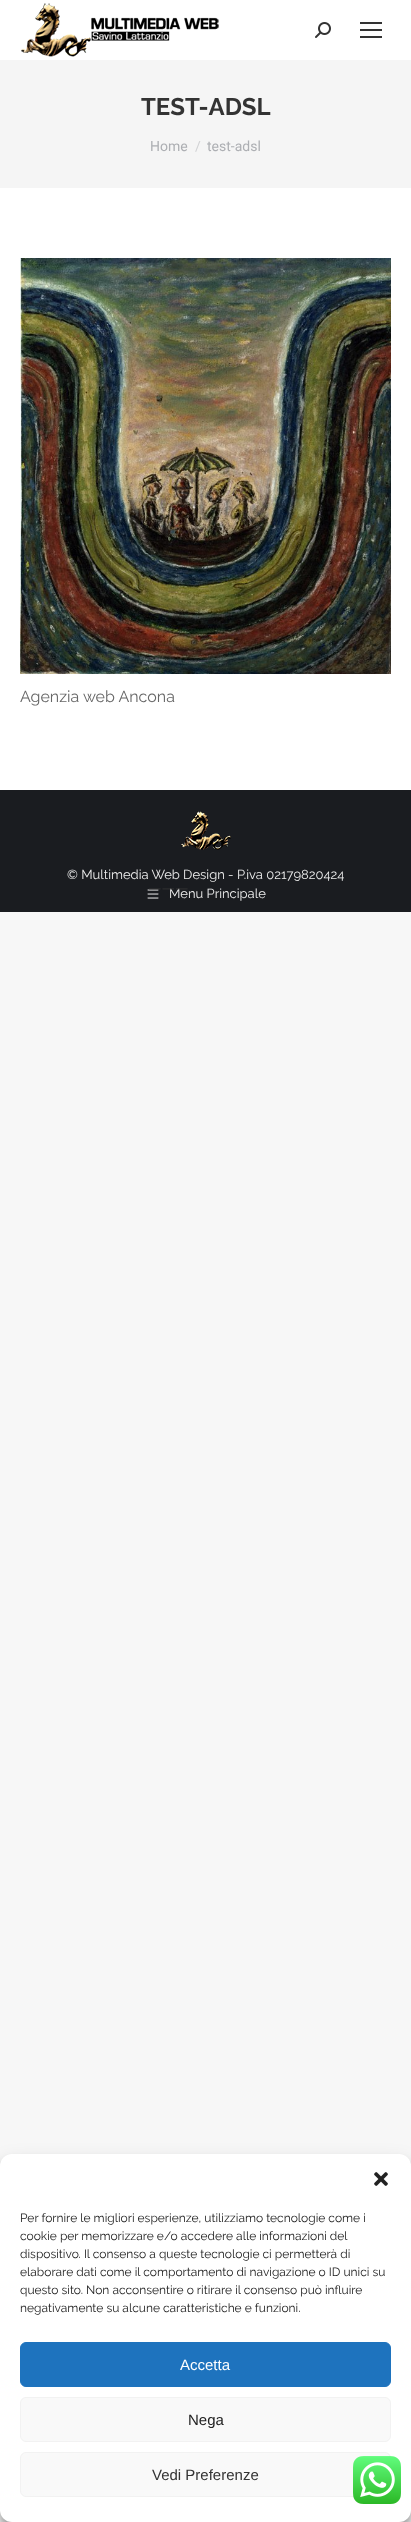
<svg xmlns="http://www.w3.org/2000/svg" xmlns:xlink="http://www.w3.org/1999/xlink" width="411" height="2522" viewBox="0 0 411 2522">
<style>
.cls-1{font:bold 24px Raleway;fill:#333333}
.cls-2{font:14px Roboto;fill:#adafb3}
.cls-3{font:14px Roboto;fill:#d1d2d4}
.cls-4{font:16px Raleway;fill:#666666}
.cls-5{font:13px Raleway;fill:#eeeeee}
.cls-6{font:15px Raleway;fill:#333333}
.cls-7{font:12px Raleway;fill:#222222}
.cls-8{font:15px Liberation Sans;fill:#ffffff}
.cls-9{font:15px Liberation Sans;fill:#222222}
.cls-10{font:15px Liberation Sans;fill:#333333}
</style>
<rect width="100%" height="100%" fill="#f7f7f7"/>
<rect fill="#ffffff" x="0" y="0" width="411" height="790"/>
<image xlink:href="image0.png" x="21" y="3" width="198" height="54"/>
<image xlink:href="image1.png" x="315" y="22" width="16" height="16"/>
<rect fill="#333333" x="360" y="22" width="22" height="2"/>
<rect fill="#333333" x="360" y="29" width="22" height="2"/>
<rect fill="#333333" x="360" y="36" width="22" height="2"/>
<rect fill="#f5f5f5" x="0" y="60" width="411" height="128"/>
<image xlink:href="image2.png" x="20" y="258" width="371" height="416"/>
<rect fill="#1a1c20" x="0" y="790" width="411" height="122"/>
<image xlink:href="image3.png" x="181" y="811" width="50" height="39"/>
<image xlink:href="image4.png" x="147" y="889" width="12" height="10"/>
<rect fill="#000000" fill-opacity="0.23" filter="blur(3px)" x="0" y="2160" width="411" height="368" rx="12"/>
<rect fill="#000000" fill-opacity="0.19" filter="blur(10px)" x="0" y="2164" width="411" height="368" rx="12"/>
<rect fill="#ffffff" x="0" y="2154" width="411" height="368" rx="12"/>
<image xlink:href="image5.png" x="374" y="2172" width="14" height="14"/>
<rect fill="#1e73be" stroke="#1e73be" x="20.5" y="2342.5" width="370" height="44" rx="5.5"/>
<rect fill="#f9f9f9" stroke="#f2f2f2" x="20.5" y="2397.5" width="370" height="44" rx="5.5"/>
<rect fill="#f9f9f9" stroke="#f2f2f2" x="20.5" y="2452.5" width="370" height="44" rx="5.5"/>
<image xlink:href="image6.png" x="353" y="2456" width="48" height="48"/>
<text class="cls-1" x="141" y="115">TEST-ADSL</text>
<text class="cls-2" x="150" y="151">Home</text>
<text class="cls-3" x="195" y="151">/</text>
<text class="cls-2" x="207" y="151">test-adsl</text>
<text class="cls-4" x="20" y="702">Agenzia web Ancona</text>
<text class="cls-5" x="67" y="879">© Multimedia Web Design - P.iva 02179820424</text>
<text class="cls-5" x="169" y="898">Menu Principale</text>
<text class="cls-6" x="148" y="893">———</text>
<text class="cls-7"><tspan x="20" y="2222">Per fornire le migliori esperienze, utilizziamo tecnologie come i</tspan><tspan x="20" y="2240">cookie per memorizzare e/o accedere alle informazioni del</tspan><tspan x="20" y="2258">dispositivo. Il consenso a queste tecnologie ci permetterà di</tspan><tspan x="20" y="2276">elaborare dati come il comportamento di navigazione o ID unici su</tspan><tspan x="20" y="2294">questo sito. Non acconsentire o ritirare il consenso può influire</tspan><tspan x="20" y="2312">negativamente su alcune caratteristiche e funzioni.</tspan></text>
<text class="cls-8" x="180" y="2370">Accetta</text>
<text class="cls-9" x="188" y="2425">Nega</text>
<text class="cls-10" x="152" y="2480">Vedi Preferenze</text>
</svg>
